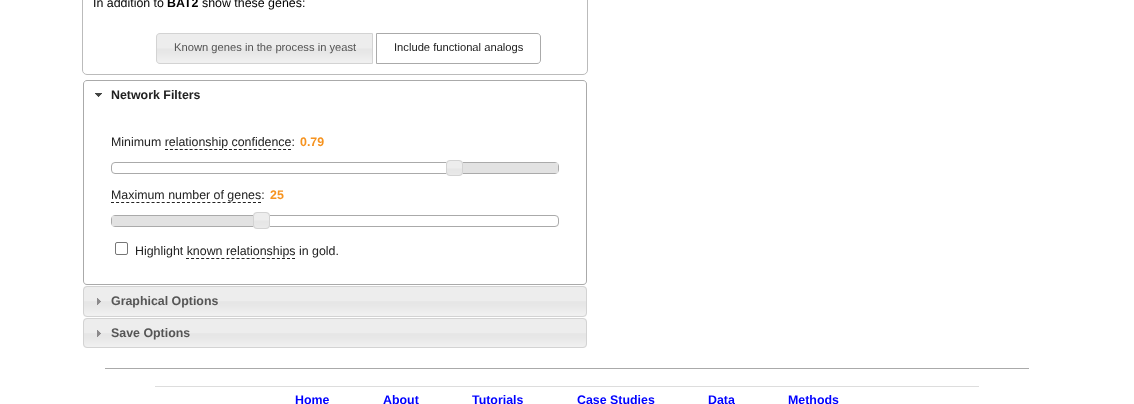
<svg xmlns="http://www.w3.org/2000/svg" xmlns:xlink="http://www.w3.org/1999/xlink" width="1134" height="404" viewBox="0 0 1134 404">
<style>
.cls-1{font:12.4px Liberation Sans;fill:#000000}
.cls-2{font:bold 12.4px Liberation Sans;fill:#000000}
.cls-3{font:11.2px Liberation Sans;fill:#555555}
.cls-4{font:11.2px Liberation Sans;fill:#212121}
.cls-5{font:bold 12.4px Liberation Sans;fill:#212121}
.cls-6{font:12.4px Liberation Sans;fill:#212121}
.cls-7{font:bold 12.4px Liberation Sans;fill:#f6931f}
.cls-8{font:bold 12.4px Liberation Sans;fill:#555555}
.cls-9{font:bold 12.4px Liberation Sans;fill:#0000ff}
</style>
<rect width="100%" height="100%" fill="#ffffff"/>
<rect fill="none" stroke="#bbbbbb" x="82.5" y="-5.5" width="505" height="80" rx="4.5"/>
<image xlink:href="image0.png" x="156" y="33" width="216" height="31"/>
<path fill="none" stroke="#d3d3d3" d="M160 33.5H372.5V63.5H160C158 63.5 156.5 62 156.5 60V37C156.5 35 158 33.5 160 33.5Z"/>
<path fill="none" stroke="#aaaaaa" d="M376.5 33.5H537C539 33.5 540.5 35 540.5 37V60C540.5 62 539 63.5 537 63.5H376.5Z"/>
<path fill="none" stroke="#aaaaaa" d="M87 80.5H583C585 80.5 586.5 82 586.5 84V109.5H83.5V84C83.5 82 85 80.5 87 80.5Z"/>
<image xlink:href="image1.png" x="95" y="93" width="7" height="4"/>
<path fill="#ffffff" d="M83 109H587V281C587 283 585 285 583 285H87C85 285 83 283 83 281Z"/>
<path fill="#aaaaaa" fill-rule="evenodd" d="M83 109H587V281C587 283 585 285 583 285H87C85 285 83 283 83 281ZM84 109H586V281C586 283 585 284 583 284H87C85 284 84 283 84 281Z"/>
<path fill="none" stroke="#222222" stroke-dasharray="3 1.92" d="M165 149.5H291"/>
<rect fill="none" stroke="#aaaaaa" x="111.5" y="162.5" width="447" height="11" rx="3.5"/>
<rect fill="#e2e2e2" x="462" y="163" width="96" height="10"/>
<image xlink:href="image2.png" x="446" y="160" width="17" height="16"/>
<rect fill="none" stroke="#d3d3d3" x="446.5" y="160.5" width="16" height="15" rx="3.5"/>
<path fill="none" stroke="#222222" stroke-dasharray="3 2.07" d="M111 202.5H261"/>
<rect fill="none" stroke="#aaaaaa" x="111.5" y="215.5" width="447" height="11" rx="3.5"/>
<rect fill="#e2e2e2" x="112" y="216" width="142" height="10"/>
<image xlink:href="image3.png" x="253" y="212" width="17" height="17"/>
<rect fill="none" stroke="#d3d3d3" x="253.5" y="212.5" width="16" height="16" rx="3.5"/>
<rect fill="none" stroke="#767676" x="115.5" y="242.5" width="12" height="12" rx="1.5"/>
<path fill="none" stroke="#222222" stroke-dasharray="3 2.05" d="M186 258.5H295"/>
<image xlink:href="image4.png" x="83" y="286" width="504" height="31"/>
<rect fill="none" stroke="#d3d3d3" x="83.5" y="286.5" width="503" height="30" rx="3.5"/>
<image xlink:href="image5.png" x="97" y="298" width="4" height="7"/>
<image xlink:href="image6.png" x="83" y="318" width="504" height="30"/>
<rect fill="none" stroke="#d3d3d3" x="83.5" y="318.5" width="503" height="29" rx="3.5"/>
<image xlink:href="image5.png" x="97" y="330" width="4" height="7"/>
<rect fill="#aaaaaa" x="105" y="368" width="924" height="1"/>
<rect fill="#dddddd" x="155" y="386" width="824" height="1"/>
<text class="cls-1" x="93" y="7">In addition to</text>
<text class="cls-2" x="167" y="7">BAT2</text>
<text class="cls-1" x="202" y="7">show these genes:</text>
<text class="cls-3" x="174" y="51">Known genes in the process in yeast</text>
<text class="cls-4" x="394" y="51">Include functional analogs</text>
<text class="cls-5" x="111" y="99">Network Filters</text>
<text class="cls-6" x="111" y="146">Minimum relationship confidence:</text>
<text class="cls-7" x="300" y="146">0.79</text>
<text class="cls-6" x="111" y="199">Maximum number of genes:</text>
<text class="cls-7" x="270" y="199">25</text>
<text class="cls-6" x="135" y="255">Highlight known relationships in gold.</text>
<text class="cls-8" x="111" y="305">Graphical Options</text>
<text class="cls-8" x="111" y="337">Save Options</text>
<text class="cls-9" x="295" y="404">Home</text>
<text class="cls-9" x="383" y="404">About</text>
<text class="cls-9" x="472" y="404">Tutorials</text>
<text class="cls-9" x="577" y="404">Case Studies</text>
<text class="cls-9" x="708" y="404">Data</text>
<text class="cls-9" x="788" y="404">Methods</text>
</svg>
